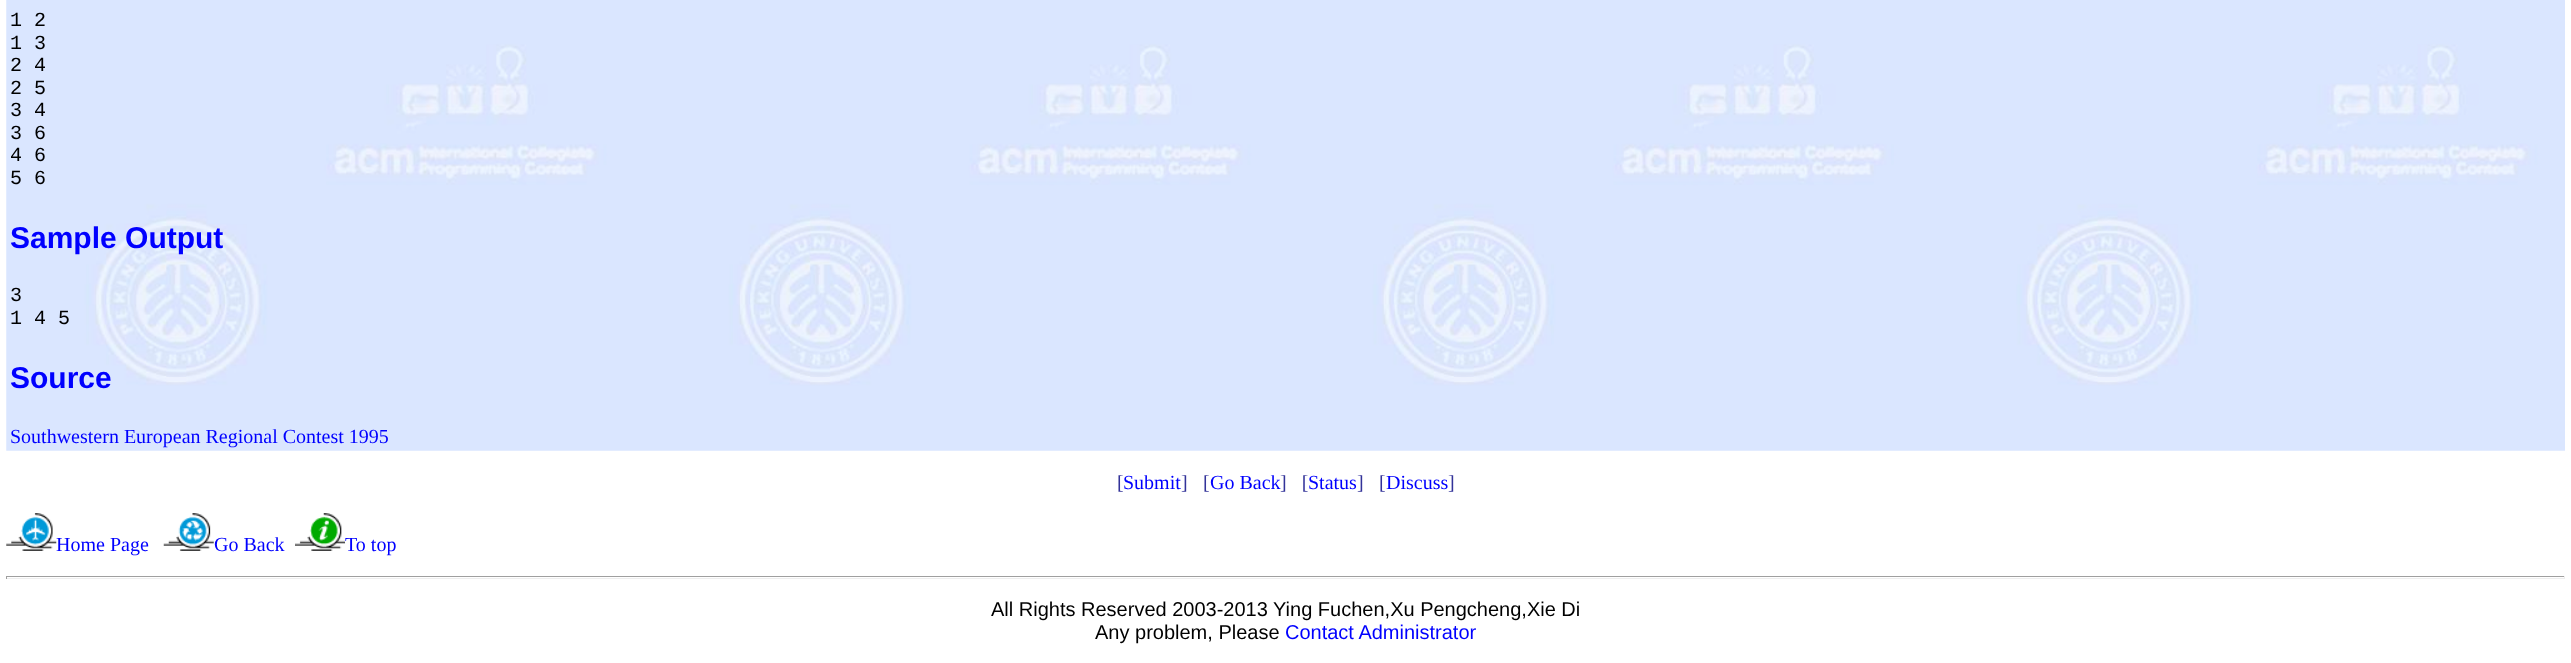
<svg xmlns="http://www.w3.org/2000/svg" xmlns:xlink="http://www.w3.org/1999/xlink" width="2571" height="663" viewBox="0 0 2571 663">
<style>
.cls-1{font:20px Liberation Mono;fill:#000000}
.cls-2{font:bold 30px Liberation Sans;fill:#0000ff}
.cls-3{font:20px Liberation Serif;fill:#0000ff}
.cls-4{font:20px Liberation Serif;fill:#333399}
.cls-5{font:20px Liberation Sans;fill:#000000}
.cls-6{font:20px Liberation Sans;fill:#0000ff}
</style>
<rect width="100%" height="100%" fill="#ffffff"/>
<image xlink:href="image0.png" x="6" y="0" width="2559" height="451"/>
<image xlink:href="image1.png" x="6" y="513" width="51" height="38"/>
<image xlink:href="image2.png" x="163" y="513" width="51" height="38"/>
<image xlink:href="image3.png" x="295" y="513" width="50" height="38"/>
<rect fill="#9f9f9f" x="6" y="576" width="2559" height="1"/>
<rect fill="#eeeeee" x="2564" y="576" width="1" height="3"/>
<rect fill="#eeeeee" x="6" y="578" width="2559" height="1"/>
<rect fill="#9f9f9f" x="6" y="576" width="1" height="3"/>
<text class="cls-1"><tspan x="10" y="26">1 2</tspan><tspan x="10" y="49">1 3</tspan><tspan x="10" y="71">2 4</tspan><tspan x="10" y="94">2 5</tspan><tspan x="10" y="116">3 4</tspan><tspan x="10" y="139">3 6</tspan><tspan x="10" y="161">4 6</tspan><tspan x="10" y="184">5 6</tspan></text>
<text class="cls-2" x="10" y="248">Sample Output</text>
<text class="cls-1"><tspan x="10" y="301">3</tspan><tspan x="10" y="324">1 4 5</tspan></text>
<text class="cls-2" x="10" y="388">Source</text>
<text class="cls-3" x="10" y="443">Southwestern European Regional Contest 1995</text>
<text class="cls-4" x="1117" y="489">[</text>
<text class="cls-3" x="1123" y="489">Submit</text>
<text class="cls-4" x="1181" y="489">]</text>
<text class="cls-4" x="1203" y="489">[</text>
<text class="cls-3" x="1210" y="489">Go Back</text>
<text class="cls-4" xml:space="preserve" x="1280" y="489">]   [</text>
<text class="cls-3" x="1308" y="489">Status</text>
<text class="cls-4" x="1357" y="489">]</text>
<text class="cls-4" x="1379" y="489">[</text>
<text class="cls-3" x="1386" y="489">Discuss</text>
<text class="cls-4" x="1448" y="489">]</text>
<text class="cls-3" x="56" y="551">Home Page</text>
<text class="cls-3" x="214" y="551">Go Back</text>
<text class="cls-3" x="345" y="551">To top</text>
<text class="cls-5" x="991" y="616">All Rights Reserved 2003-2013 Ying Fuchen,Xu Pengcheng,Xie Di</text>
<text class="cls-5" x="1095" y="639">Any problem, Please</text>
<text class="cls-6" x="1285" y="639">Contact Administrator</text>
</svg>
